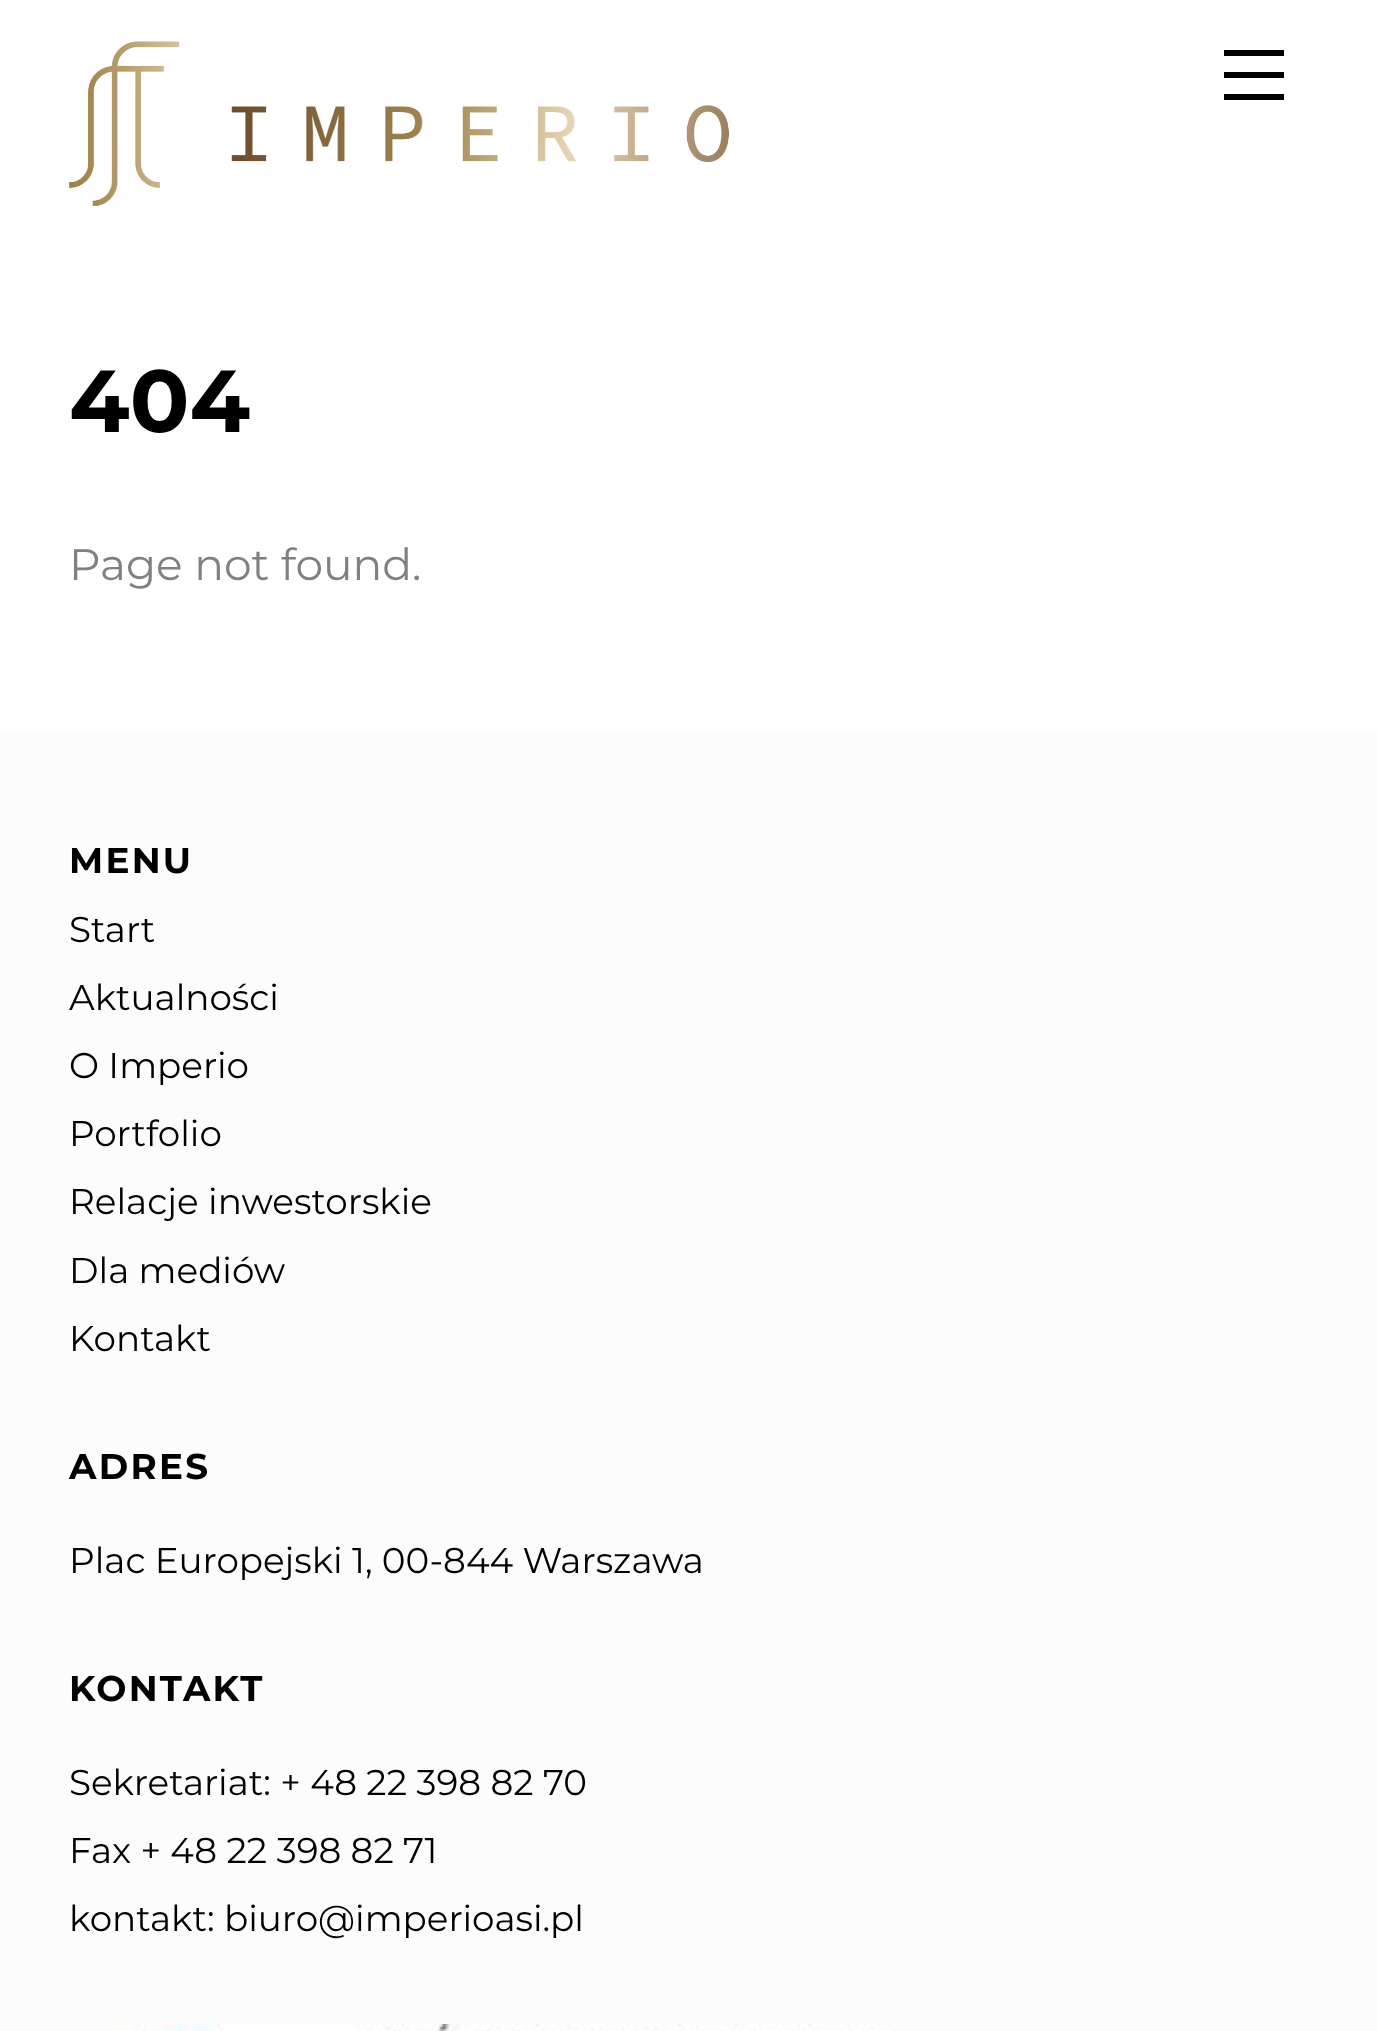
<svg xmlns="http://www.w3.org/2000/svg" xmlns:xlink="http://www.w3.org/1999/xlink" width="1377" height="2031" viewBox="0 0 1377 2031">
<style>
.cls-1{font:bold 88px Montserrat;fill:#000000}
.cls-2{font:44px Montserrat;fill:#808080}
.cls-3{font:bold 35.75px Montserrat;letter-spacing:2.25px;fill:#000000}
.cls-4{font:35.75px Montserrat;fill:#000000}
</style>
<rect width="100%" height="100%" fill="#ffffff"/>
<image xlink:href="image0.png" x="69" y="41" width="660" height="165"/>
<rect fill="#000000" x="1224" y="94" width="60" height="6"/>
<rect fill="#000000" x="1224" y="50" width="60" height="6"/>
<rect fill="#000000" x="1224" y="72" width="60" height="6"/>
<rect fill="#fcfcfc" x="0" y="732" width="1377" height="1299"/>
<image xlink:href="image1.png" x="112" y="2024" width="778" height="7"/>
<text class="cls-1" x="69" y="432">404</text>
<text class="cls-2" x="69" y="580">Page not found.</text>
<text class="cls-3" x="69" y="873">MENU</text>
<text class="cls-4"><tspan x="69" y="942">Start</tspan><tspan x="69" y="1010">Aktualności</tspan><tspan x="69" y="1078">O Imperio</tspan><tspan x="69" y="1146">Portfolio</tspan><tspan x="69" y="1214">Relacje inwestorskie</tspan><tspan x="69" y="1283">Dla mediów</tspan><tspan x="69" y="1351">Kontakt</tspan></text>
<text class="cls-3" x="69" y="1479">ADRES</text>
<text class="cls-4" x="69" y="1573">Plac Europejski 1, 00-844 Warszawa</text>
<text class="cls-3" x="69" y="1701">KONTAKT</text>
<text class="cls-4"><tspan x="69" y="1795">Sekretariat: + 48 22 398 82 70</tspan><tspan x="69" y="1863">Fax + 48 22 398 82 71</tspan><tspan x="69" y="1931">kontakt: biuro@imperioasi.pl</tspan></text>
</svg>
